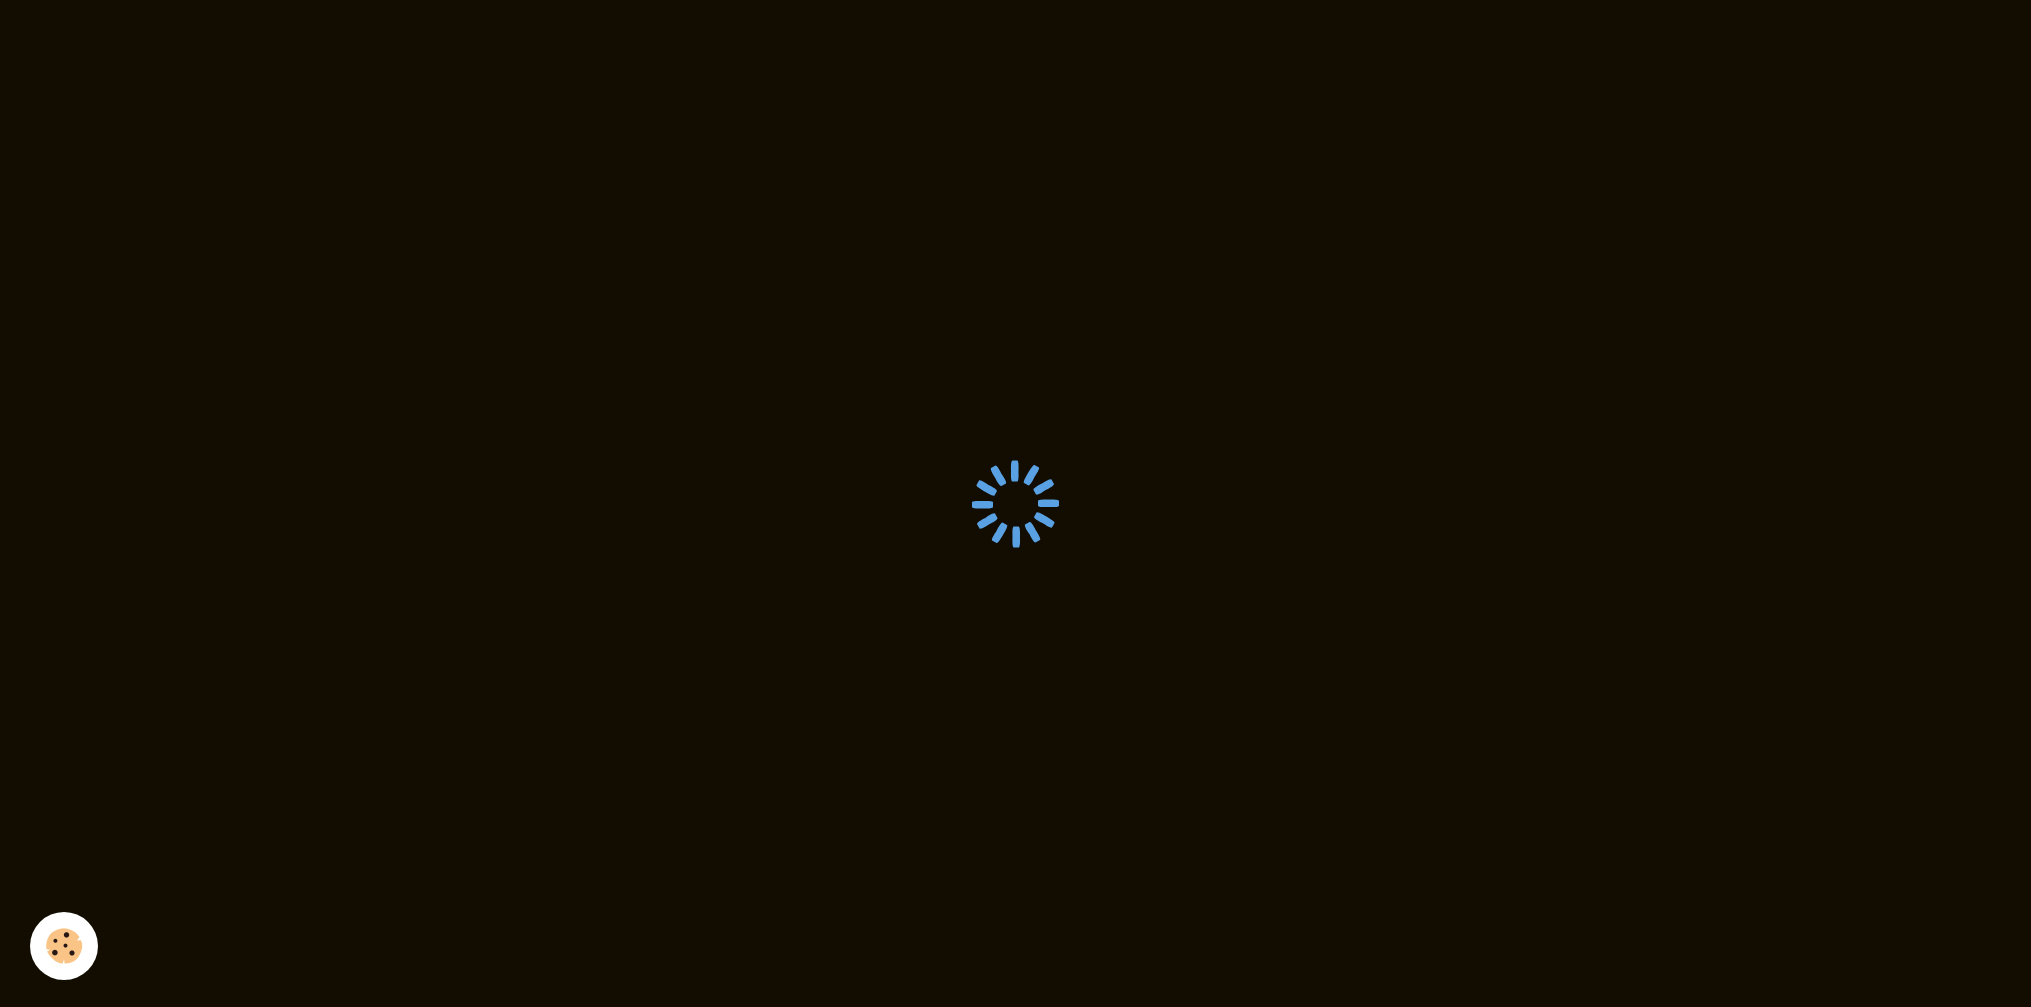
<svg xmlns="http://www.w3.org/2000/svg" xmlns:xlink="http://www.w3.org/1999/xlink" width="2031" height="1007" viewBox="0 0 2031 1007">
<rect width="100%" height="100%" fill="#130d01"/>
<path fill="#59a1e3" d="M1012.5 460.5H1017.5C1019 461.5 1018.5 469.5 1018.5 471C1018.5 472.5 1019 480.5 1017.5 481.5H1012.5C1010.5 481.5 1011 472 1011 471C1011 470 1010.5 460.5 1012.5 460.5ZM1034.5 465L1039 467.5C1040 469 1035.5 475.5 1034.5 477C1034 478 1030.5 485.5 1028.5 485.5L1024 483C1022.5 482 1027.5 474 1028 473C1028.5 472.5 1033 464 1034.5 465Z"/>
<path fill="#59a1e3" d="M1051.5 479.5L1054 484C1054 486 1047 489.5 1045.5 490C1044.5 491 1038 495.5 1036 494.5L1033.5 490C1032.5 488 1041 484 1042 483.5C1042.5 483 1050.5 478 1051.5 479.5ZM1059 501V506C1058 507.5 1050 507 1048.5 507C1047 507 1039 507.5 1038 506V501C1038 499 1047.5 499.5 1048.5 499.5C1049.5 499.5 1059 499 1059 501ZM1054.5 523L1052 527.5C1050.5 528.5 1044 524 1042.5 523C1041.5 522.5 1034 519 1034 517L1036.5 512.5C1037.5 511 1045.5 516 1046.5 516.5C1047 517 1055.5 521.5 1054.5 523Z"/>
<path fill="#59a1e3" d="M1040 540L1035.5 542.5C1033.5 542.5 1030 535.5 1029.5 534C1028.5 533 1024 526.5 1025 524.5L1029.5 522C1031.5 521 1035.5 529.5 1036 530.5C1036.5 531 1041.5 539 1040 540ZM1018.5 547.5H1013.5C1012 546.5 1012.5 538.5 1012.5 537C1012.5 535.5 1012 527.5 1013.5 526.5H1018.5C1020.5 526.5 1020 536 1020 537C1020 538 1020.5 547.5 1018.5 547.5ZM996.5 543L992 540.5C991 539 995.5 532.5 996.5 531C997 530 1000.5 522.5 1002.5 522.5L1007 525C1008.5 526 1003.5 534 1003 535C1002.5 535.5 998 544 996.5 543Z"/>
<path fill="#59a1e3" d="M979.5 528.5L977 524C977 522 984 518.5 985.5 518C986.5 517 993 512.5 995 513.5L997.5 518C998.5 520 990 524 989 524.5C988.5 525 980.5 530 979.5 528.5ZM972 507V502C973 500.5 981 501 982.5 501C984 501 992 500.5 993 502V507C993 509 983.5 508.5 982.5 508.5C981.5 508.5 972 509 972 507ZM976.5 485L979 480.5C980.5 479.5 987 484 988.5 485C989.5 485.5 997 489 997 491L994.5 495.5C993.5 497 985.5 492 984.5 491.5C984 491 975.5 486.5 976.5 485Z"/>
<path fill="#59a1e3" d="M991 468L995.5 465.5C997.5 465.5 1001 472.5 1001.5 474C1002.5 475 1007 481.5 1006 483.5L1001.5 486C999.5 487 995.5 478.5 995 477.5C994.5 477 989.5 469 991 468Z"/>
<circle fill="#ffffff" cx="64" cy="946" r="34"/>
<image xlink:href="image0.png" x="46" y="928" width="37" height="36"/>
</svg>
